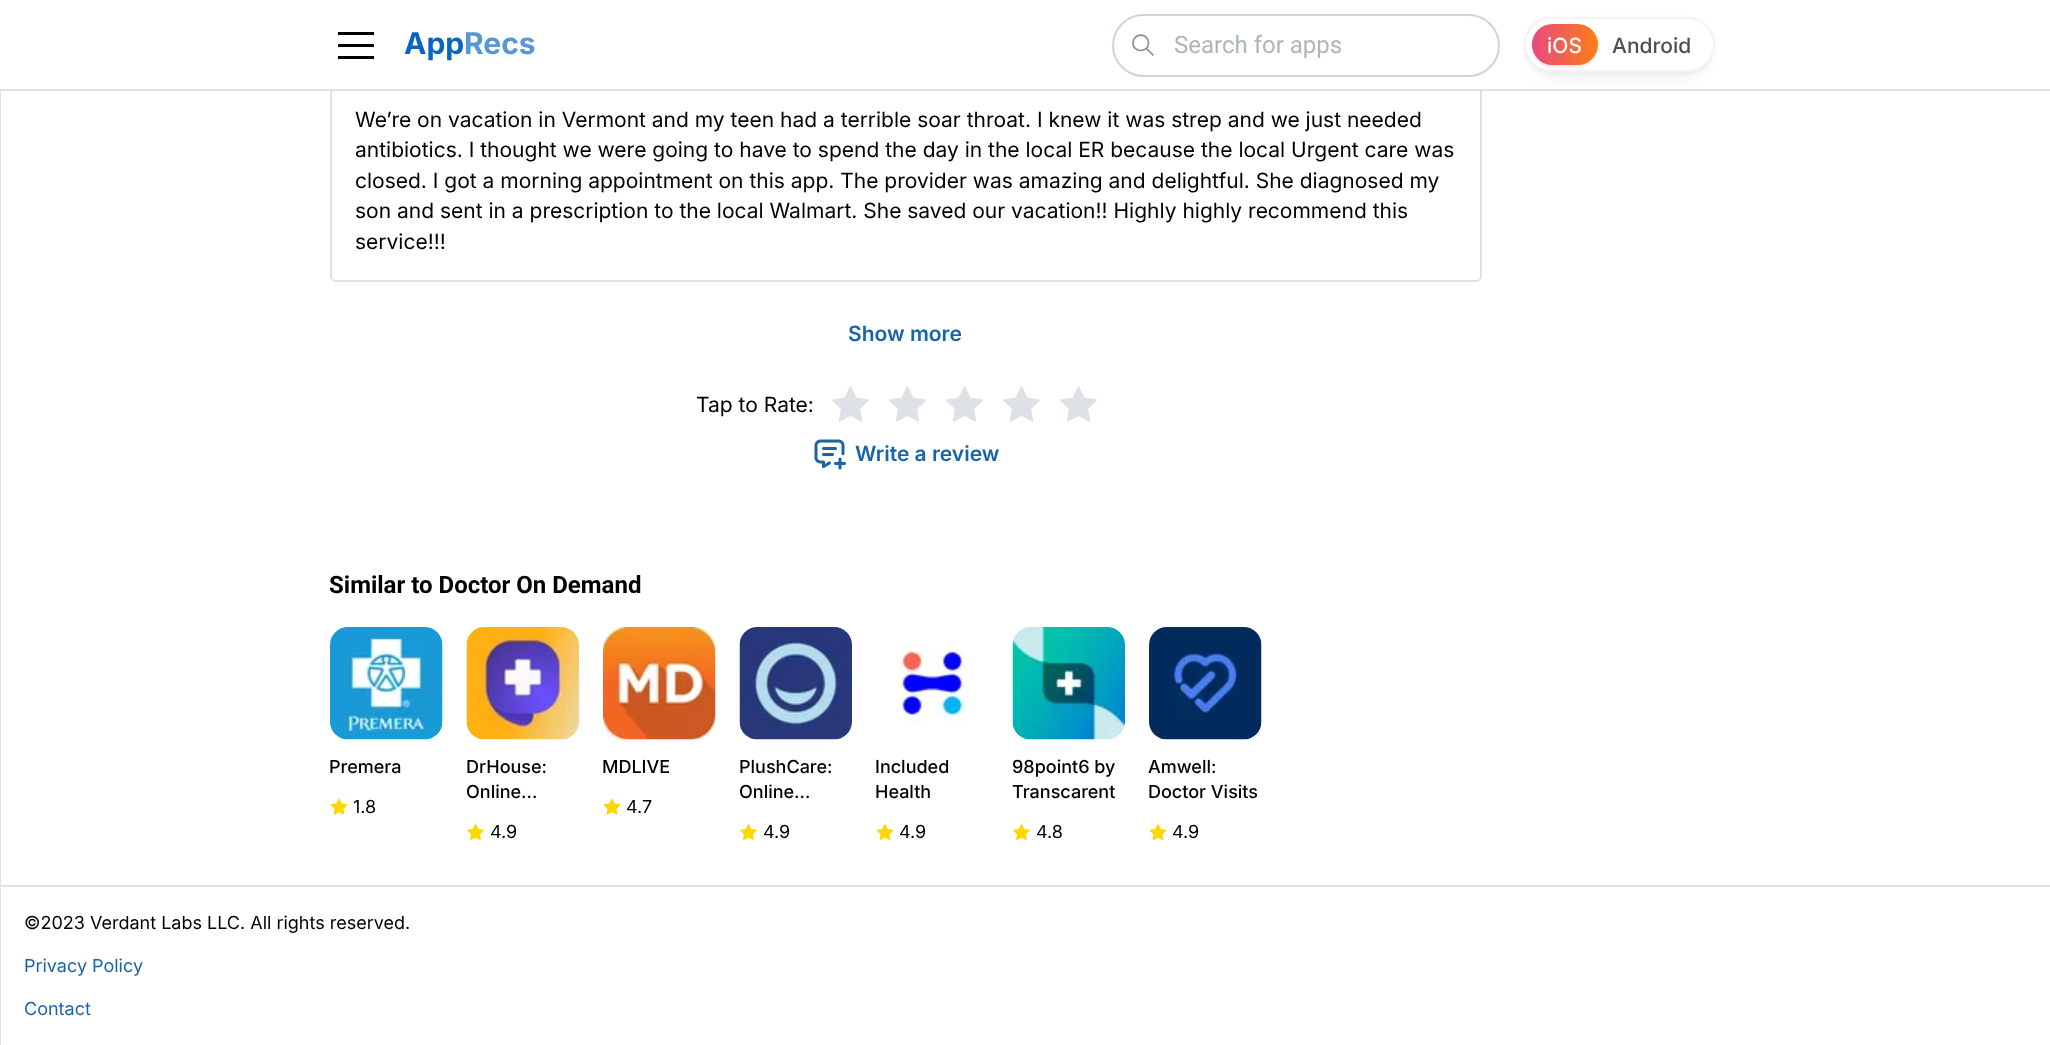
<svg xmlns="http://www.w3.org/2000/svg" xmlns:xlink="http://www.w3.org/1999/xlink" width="2050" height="1045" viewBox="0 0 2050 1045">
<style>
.cls-1{font:bold 30px Inter;fill:#0a65c1}
.cls-2{font:bold 30px Inter;fill:#5896d5}
.cls-3{font:24px Roboto;fill:#adb5bd}
.cls-4{font:500 21px Inter;fill:#ffffff}
.cls-5{font:500 21px Inter;fill:#495057}
.cls-6{font:21px Inter;fill:#000000}
.cls-7{font:600 21px Inter;fill:#1864ab}
.cls-8{font:bold 24px Roboto;fill:#000000}
.cls-9{font:500 18px Inter;fill:#000000}
.cls-10{font:18px Inter;fill:#000000}
.cls-11{font:18px Inter;fill:#1864ab}
</style>
<defs>
<linearGradient id="g1" gradientUnits="userSpaceOnUse" x1="1532" y1="44" x2="1598" y2="44"><stop offset="0" stop-color="#e64980"/><stop offset="1" stop-color="#fd7e14"/></linearGradient>
<clipPath id="clip1"><rect x="467" y="755" width="112" height="51"/></clipPath>
<clipPath id="clip2"><rect x="740" y="755" width="112" height="51"/></clipPath>
<clipPath id="clip3"><rect x="1013" y="755" width="112" height="51"/></clipPath>
</defs>
<rect width="100%" height="100%" fill="#ffffff"/>
<rect fill="none" stroke="#dee2e6" stroke-width="2" x="331" y="-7" width="1150" height="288" rx="5"/>
<rect fill="#ffffff" x="330" y="0" width="1152" height="89"/>
<rect fill="#dee2e6" x="0" y="89" width="2050" height="2"/>
<rect fill="#000000" x="338" y="44" width="36" height="3"/>
<rect fill="#000000" x="338" y="32" width="36" height="3"/>
<rect fill="#000000" x="338" y="56" width="36" height="3"/>
<rect fill="none" stroke="#ced4da" stroke-width="2" x="1113" y="15" width="386" height="61" rx="30.5"/>
<path fill="none" stroke="#868e96" stroke-width="1.7" stroke-linecap="round" stroke-linejoin="round" d="M1133 43C1133 53 1148.5 53 1148.5 43C1148.5 32.5 1133 32.5 1133 43M1153 55L1146.5 48.5"/>
<rect fill="#000000" fill-opacity="0.04" filter="blur(7.5px)" x="1532" y="39" width="175" height="41" rx="20.5"/>
<rect fill="#000000" fill-opacity="0.05" filter="blur(2px)" x="1524" y="18" width="191" height="56" rx="28"/>
<rect fill="#ffffff" stroke="#f1f3f5" stroke-width="2" x="1525" y="18" width="189" height="53" rx="26.5"/>
<rect fill="#000000" fill-opacity="0.1" filter="blur(1.5px)" x="1532" y="26" width="66" height="40" rx="20"/>
<rect fill="#000000" fill-opacity="0.05" filter="blur(2px)" x="1532" y="26" width="66" height="40" rx="20"/>
<rect fill="url(#g1)" x="1532" y="24" width="66" height="41" rx="20.5"/>
<rect fill="#dee2e6" x="0" y="885" width="2050" height="2"/>
<rect fill="#dee2e6" x="0" y="90" width="1" height="955"/>
<image xlink:href="image0.png" x="832" y="386" width="37" height="36"/>
<image xlink:href="image0.png" x="889" y="386" width="37" height="36"/>
<image xlink:href="image0.png" x="946" y="386" width="37" height="36"/>
<image xlink:href="image0.png" x="1003" y="386" width="37" height="36"/>
<image xlink:href="image0.png" x="1060" y="386" width="37" height="36"/>
<image xlink:href="image1.png" x="814" y="439" width="32" height="31"/>
<image xlink:href="image2.png" x="330" y="627" width="113" height="113"/>
<image xlink:href="image3.png" x="330" y="798" width="18" height="17"/>
<image xlink:href="image4.png" x="466" y="627" width="113" height="113"/>
<image xlink:href="image5.png" x="467" y="824" width="17" height="16"/>
<image xlink:href="image6.png" x="603" y="627" width="113" height="113"/>
<image xlink:href="image3.png" x="603" y="798" width="18" height="17"/>
<image xlink:href="image7.png" x="739" y="627" width="113" height="113"/>
<image xlink:href="image5.png" x="740" y="824" width="17" height="16"/>
<image xlink:href="image8.png" x="899" y="649" width="74" height="75"/>
<image xlink:href="image9.png" x="876" y="824" width="18" height="16"/>
<image xlink:href="image10.png" x="1012" y="627" width="113" height="113"/>
<image xlink:href="image5.png" x="1013" y="824" width="17" height="16"/>
<image xlink:href="image11.png" x="1149" y="627" width="113" height="113"/>
<image xlink:href="image9.png" x="1149" y="824" width="18" height="16"/>
<text class="cls-1" x="404" y="54">App</text>
<text class="cls-2" x="464" y="54">Recs</text>
<text class="cls-3" x="1174" y="53">Search for apps</text>
<text class="cls-4" x="1547" y="53">iOS</text>
<text class="cls-5" x="1612" y="53">Android</text>
<text class="cls-6"><tspan x="355" y="127">We’re on vacation in Vermont and my teen had a terrible soar throat. I knew it was strep and we just needed</tspan><tspan x="355" y="157">antibiotics. I thought we were going to have to spend the day in the local ER because the local Urgent care was</tspan><tspan x="355" y="188">closed. I got a morning appointment on this app. The provider was amazing and delightful. She diagnosed my</tspan><tspan x="355" y="218">son and sent in a prescription to the local Walmart. She saved our vacation!! Highly highly recommend this</tspan><tspan x="355" y="249">service!!!</tspan></text>
<text class="cls-7" x="848" y="341">Show more</text>
<text class="cls-6" x="696" y="412">Tap to Rate:</text>
<text class="cls-7" x="855" y="461">Write a review</text>
<text class="cls-8" x="329" y="593">Similar to Doctor On Demand</text>
<text class="cls-9" x="329" y="773">Premera</text>
<text class="cls-10" x="353" y="813">1.8</text>
<text class="cls-9" x="466" y="773">DrHouse:</text>
<g clip-path="url(#clip1)">
<text class="cls-9" x="466" y="798">Online…</text>
</g>
<text class="cls-10" x="490" y="838">4.9</text>
<text class="cls-9" x="602" y="773">MDLIVE</text>
<text class="cls-10" x="626" y="813">4.7</text>
<text class="cls-9" x="739" y="773">PlushCare:</text>
<g clip-path="url(#clip2)">
<text class="cls-9" x="739" y="798">Online…</text>
</g>
<text class="cls-10" x="763" y="838">4.9</text>
<text class="cls-9"><tspan x="875" y="773">Included</tspan><tspan x="875" y="798">Health</tspan></text>
<text class="cls-10" x="899" y="838">4.9</text>
<g clip-path="url(#clip3)">
<text class="cls-9" x="1012" y="773">98point6 by</text>
</g>
<text class="cls-9" x="1012" y="798">Transcarent</text>
<text class="cls-10" x="1036" y="838">4.8</text>
<text class="cls-9"><tspan x="1148" y="773">Amwell:</tspan><tspan x="1148" y="798">Doctor Visits</tspan></text>
<text class="cls-10" x="1172" y="838">4.9</text>
<text class="cls-10" x="24" y="929">©2023 Verdant Labs LLC. All rights reserved.</text>
<text class="cls-11" x="24" y="972">Privacy Policy</text>
<text class="cls-11" x="24" y="1015">Contact</text>
</svg>
